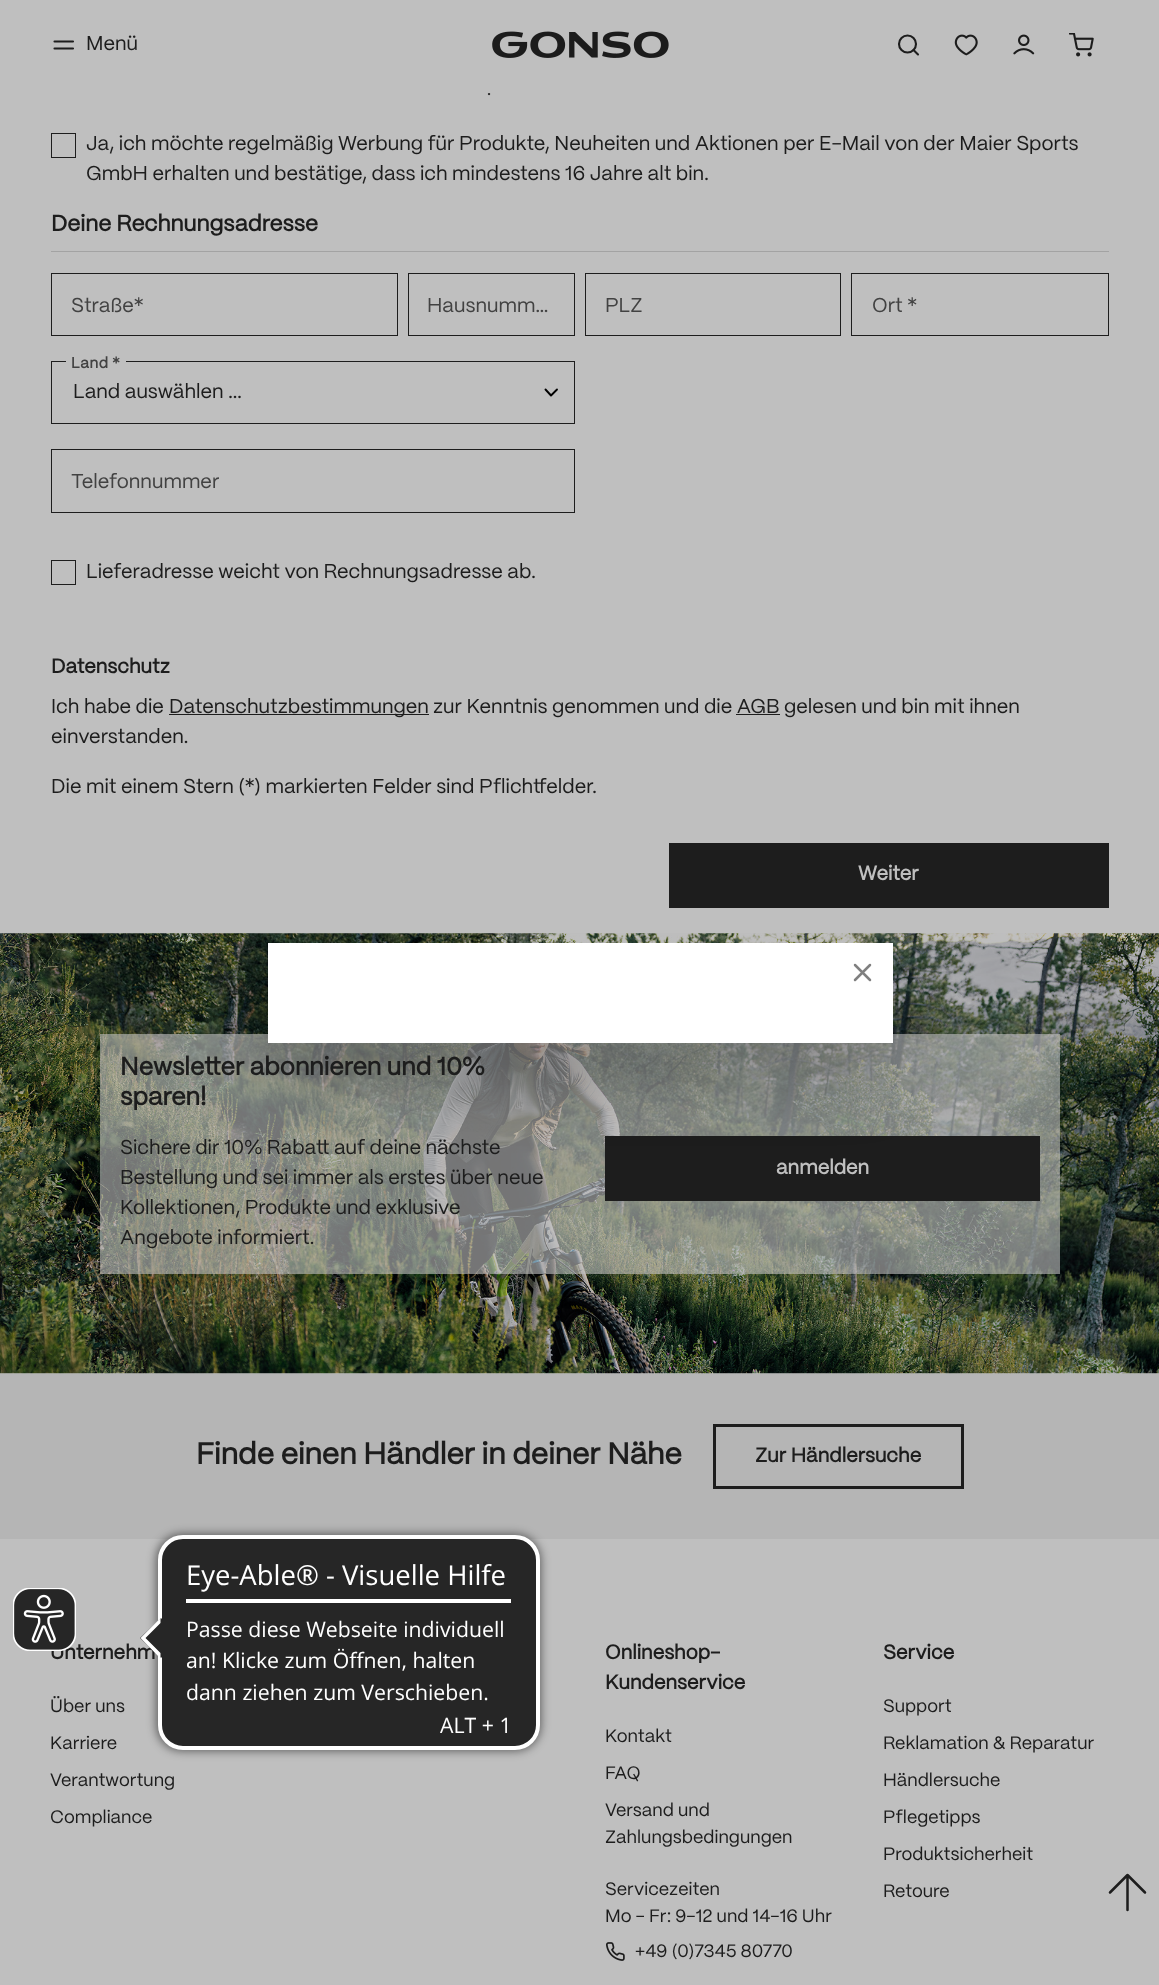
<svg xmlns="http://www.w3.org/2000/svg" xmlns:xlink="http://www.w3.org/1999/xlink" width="1159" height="1985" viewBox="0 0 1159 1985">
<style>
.cls-1{font:20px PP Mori;fill:#1d1d1d}
.cls-2{font:18px PP Mori;fill:#1d1d1d}
.cls-3{font:bold 22.5px PP Mori;fill:#1d1d1d}
.cls-4{font:20px PP Mori;fill:#424242}
.cls-5{font:bold 15px PP Mori;letter-spacing:0.5px;fill:#424242}
.cls-6{font:bold 20px PP Mori;fill:#1d1d1d}
.cls-7{font:bold 20px PP Mori;fill:#bfbfbf}
.cls-8{font:bold 25px PP Mori;fill:#1d1d1d}
.cls-9{font:bold 30px PP Mori;fill:#1d1d1d}
.cls-10{font:27.5px Open Sans;fill:#ffffff}
.cls-11{font:21.25px Open Sans;fill:#ffffff}
</style>
<rect width="100%" height="100%" fill="#bfbfbf"/>
<path fill="none" stroke="#1d1d1d" stroke-width="2.1" stroke-linecap="round" stroke-linejoin="round" d="M54.5 41.5H73M54.5 48.5H73"/>
<image xlink:href="image0.png" x="492" y="31" width="177" height="27"/>
<circle fill="none" stroke="#1d1d1d" stroke-width="2.1" cx="907.5" cy="44" r="8.5"/>
<path fill="none" stroke="#1d1d1d" stroke-width="2.1" stroke-linecap="round" stroke-linejoin="round" d="M918 54.5L913.5 50"/>
<image xlink:href="image1.png" x="954" y="34" width="24" height="22"/>
<image xlink:href="image2.png" x="1013" y="34" width="22" height="21"/>
<image xlink:href="image3.png" x="1069" y="33" width="25" height="24"/>
<rect fill="none" stroke="#1d1d1d" x="51.5" y="133.5" width="24" height="24"/>
<rect fill="#a3a3a3" x="51" y="251" width="1058" height="1"/>
<rect fill="none" stroke="#1d1d1d" x="51.5" y="273.5" width="346" height="62"/>
<rect fill="none" stroke="#1d1d1d" x="408.5" y="273.5" width="166" height="62"/>
<rect fill="none" stroke="#1d1d1d" x="585.5" y="273.5" width="255" height="62"/>
<rect fill="none" stroke="#1d1d1d" x="851.5" y="273.5" width="257" height="62"/>
<path fill="none" stroke="#000000" stroke-width="1.9" stroke-linecap="round" stroke-linejoin="round" d="M545.5 389.5L551 395.5L557 389.5"/>
<rect fill="none" stroke="#1d1d1d" x="51.5" y="361.5" width="523" height="62"/>
<rect fill="#bfbfbf" x="66" y="361" width="60" height="1"/>
<rect fill="none" stroke="#1d1d1d" x="51.5" y="449.5" width="523" height="63"/>
<rect fill="none" stroke="#1d1d1d" x="51.5" y="560.5" width="24" height="24"/>
<rect fill="#1d1d1d" x="169" y="714" width="260" height="1"/>
<rect fill="#1d1d1d" x="736" y="714" width="44" height="1"/>
<rect fill="#1d1d1d" x="669" y="843" width="440" height="65"/>
<image xlink:href="image4.png" x="0" y="933" width="1159" height="441"/>
<rect fill="#bfbfbf" fill-opacity="0.61" x="100" y="1034" width="960" height="240"/>
<rect fill="#1d1d1d" x="605" y="1136" width="435" height="65"/>
<rect fill="#000000" fill-opacity="0.2" filter="blur(27px)" x="275" y="1004" width="610" height="85"/>
<rect fill="#ffffff" x="268" y="943" width="625" height="100"/>
<path fill="none" stroke="#808080" stroke-width="2.5" stroke-linecap="round" stroke-linejoin="round" d="M870 965L855 980M855 965L870 980"/>
<rect fill="#b5b5b5" x="0" y="1374" width="1159" height="165"/>
<rect fill="none" stroke="#1d1d1d" stroke-width="3" x="714.5" y="1425.5" width="248" height="62"/>
<image xlink:href="image5.png" x="606" y="1942" width="19" height="19"/>
<rect fill="#000000" fill-opacity="0.5" filter="blur(5px)" x="156" y="1534" width="385" height="217" rx="26"/>
<rect fill="#262626" stroke="#ffffff" stroke-width="4" x="160" y="1537" width="378" height="211" rx="23"/>
<rect fill="#ffffff" x="186" y="1599" width="325" height="4"/>
<path fill="none" stroke="#1d1d1d" stroke-width="2.5" stroke-linecap="round" stroke-linejoin="round" d="M1127.5 1910V1875M1110 1892.5L1127.5 1875L1145 1892.5"/>
<text class="cls-1" x="86" y="50">Menü</text>
<text class="cls-2" x="487" y="95">.</text>
<text class="cls-1"><tspan x="86" y="150">Ja, ich möchte regelmäßig Werbung für Produkte, Neuheiten und Aktionen per E-Mail von der Maier Sports</tspan><tspan x="86" y="180">GmbH erhalten und bestätige, dass ich mindestens 16 Jahre alt bin.</tspan></text>
<text class="cls-3" x="51" y="231">Deine Rechnungsadresse</text>
<text class="cls-4" x="71" y="312">Straße*</text>
<text class="cls-4" x="427" y="312">Hausnumm…</text>
<text class="cls-4" x="605" y="312">PLZ</text>
<text class="cls-4" x="872" y="312">Ort *</text>
<text class="cls-5" x="71" y="368">Land *</text>
<text class="cls-1" x="73" y="398">Land auswählen ...</text>
<text class="cls-4" x="71" y="488">Telefonnummer</text>
<text class="cls-1" x="86" y="578">Lieferadresse weicht von Rechnungsadresse ab.</text>
<text class="cls-6" x="51" y="673">Datenschutz</text>
<text class="cls-1" x="51" y="713">Ich habe die</text>
<text class="cls-1" x="169" y="713">Datenschutzbestimmungen</text>
<text class="cls-1" x="433" y="713">zur Kenntnis genommen und die AGB</text>
<text class="cls-1" x="784" y="713">gelesen und bin mit ihnen</text>
<text class="cls-1" x="51" y="743">einverstanden.</text>
<text class="cls-1" x="51" y="793">Die mit einem Stern (*) markierten Felder sind Pflichtfelder.</text>
<text class="cls-7" x="858" y="880">Weiter</text>
<text class="cls-8"><tspan x="120" y="1075">Newsletter abonnieren und 10%</tspan><tspan x="120" y="1105">sparen!</tspan></text>
<text class="cls-1"><tspan x="120" y="1154">Sichere dir 10% Rabatt auf deine nächste</tspan><tspan x="120" y="1184">Bestellung und sei immer als erstes über neue</tspan><tspan x="120" y="1214">Kollektionen, Produkte und exklusive</tspan><tspan x="120" y="1244">Angebote informiert.</tspan></text>
<text class="cls-7" x="776" y="1174">anmelden</text>
<text class="cls-9" x="196" y="1464">Finde einen Händler in deiner Nähe</text>
<text class="cls-6" x="755" y="1462">Zur Händlersuche</text>
<text class="cls-6" x="50" y="1659">Unternehm</text>
<text class="cls-2" x="50" y="1712">Über uns</text>
<text class="cls-2" x="50" y="1749">Karriere</text>
<text class="cls-2" x="50" y="1786">Verantwortung</text>
<text class="cls-2" x="50" y="1823">Compliance</text>
<text class="cls-6"><tspan x="605" y="1659">Onlineshop-</tspan><tspan x="605" y="1689">Kundenservice</tspan></text>
<text class="cls-2" x="605" y="1742">Kontakt</text>
<text class="cls-2" x="605" y="1779">FAQ</text>
<text class="cls-2"><tspan x="605" y="1816">Versand und</tspan><tspan x="605" y="1843">Zahlungsbedingungen</tspan></text>
<text class="cls-2"><tspan x="605" y="1895">Servicezeiten</tspan><tspan x="605" y="1922">Mo - Fr: 9-12 und 14-16 Uhr</tspan></text>
<text class="cls-2" x="635" y="1957">+49 (0)7345 80770</text>
<text class="cls-6" x="883" y="1659">Service</text>
<text class="cls-2" x="883" y="1712">Support</text>
<text class="cls-2" x="883" y="1749">Reklamation &amp; Reparatur</text>
<text class="cls-2" x="883" y="1786">Händlersuche</text>
<text class="cls-2" x="883" y="1823">Pflegetipps</text>
<text class="cls-2" x="883" y="1860">Produktsicherheit</text>
<text class="cls-2" x="883" y="1897">Retoure</text>
<image xlink:href="image6.png" x="13" y="1588" width="63" height="63"/>
<text class="cls-10" x="186" y="1585">Eye-Able® - Visuelle Hilfe</text>
<path fill="#262626" d="M161 1658L140 1638L161 1618L181 1638Z"/>
<path fill="#ffffff" d="M160.5 1658.5L140.5 1638H145.5L160.5 1653ZM140.5 1638L160.5 1618V1623L145.5 1638Z"/>
<text class="cls-11"><tspan x="186" y="1637">Passe diese Webseite individuell</tspan><tspan x="186" y="1668">an! Klicke zum Öffnen, halten</tspan><tspan x="186" y="1700">dann ziehen zum Verschieben.</tspan></text>
<text class="cls-11" x="440" y="1733">ALT + 1</text>
</svg>
